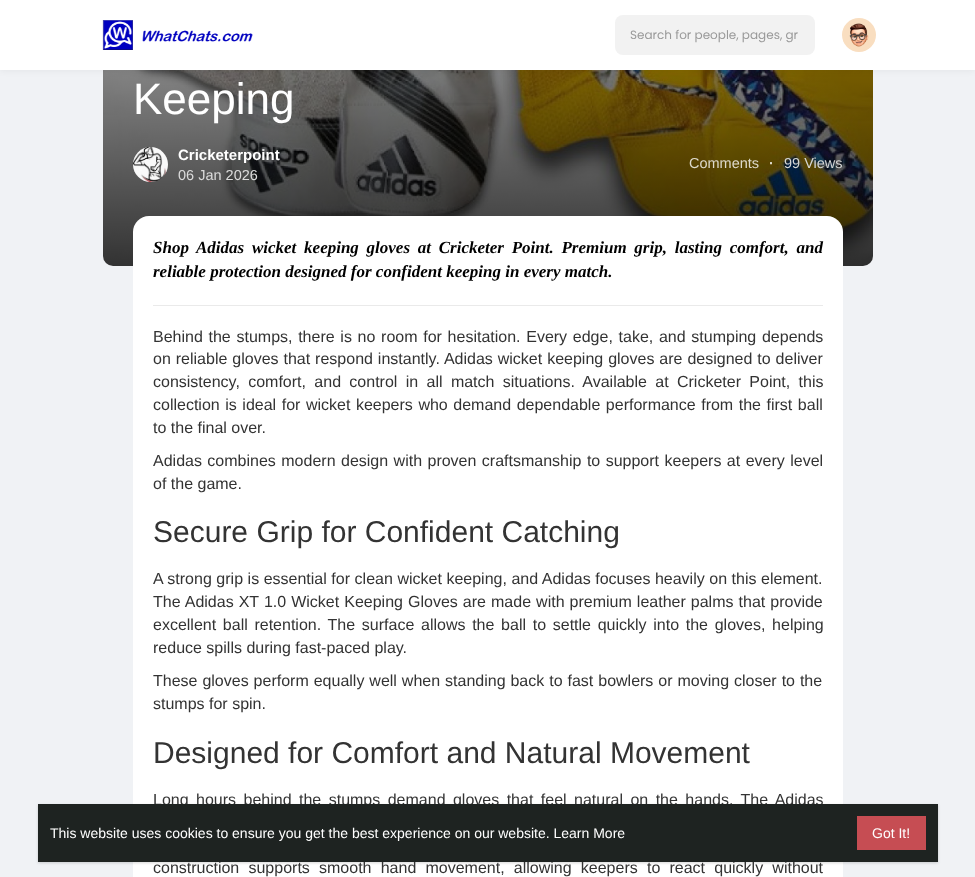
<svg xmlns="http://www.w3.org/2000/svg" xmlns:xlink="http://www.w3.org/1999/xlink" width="975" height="877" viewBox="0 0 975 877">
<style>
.cls-1{font:12px Poppins;fill:#999999}
.cls-2{font:44px Liberation Sans;fill:#ffffff}
.cls-3{font:bold 15px Liberation Sans;fill:#ffffff}
.cls-4{font:14.5px Liberation Sans;fill:#dbdbdb}
.cls-5{font:14.5px Liberation Sans;fill:#dedacc}
.cls-6{font:bold 14.5px Liberation Sans;fill:#dedacc}
.cls-7{font:14.5px Liberation Sans;fill:#d4d6d5}
.cls-8{font:italic bold 17px Liberation Serif;fill:#000000}
.cls-9{font:16px Liberation Sans;fill:#333333}
.cls-10{font:30px Liberation Sans;fill:#333333}
.cls-11{font:14px Liberation Sans;fill:#ffffff}
</style>
<defs>
<linearGradient id="g1" gradientUnits="userSpaceOnUse" x1="488" y1="-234" x2="488" y2="266"><stop offset="0" stop-color="#000000" stop-opacity="0"/><stop offset="1" stop-color="#000000" stop-opacity="0.8"/></linearGradient>
</defs>
<rect width="100%" height="100%" fill="#f0f2f5"/>
<image xlink:href="image2.png" x="103" y="70" width="770" height="196"/>
<rect fill="url(#g1)" x="103" y="-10" width="770" height="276" rx="10"/>
<rect fill="#000000" fill-opacity="0.05" filter="blur(3px)" x="0" y="1" width="975" height="70"/>
<rect fill="#ffffff" x="0" y="0" width="975" height="70"/>
<image xlink:href="image0.png" x="102" y="20" width="151" height="30"/>
<rect fill="#f2f2f2" x="615" y="15" width="200" height="40" rx="8"/>
<image xlink:href="image1.png" x="842" y="18" width="34" height="34"/>
<image xlink:href="image3.png" x="133" y="147" width="35" height="35"/>
<rect fill="#ffffff" x="133" y="216" width="710" height="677" rx="16"/>
<rect fill="#eaeaea" x="153" y="305" width="670" height="1"/>
<rect fill="#000000" fill-opacity="0.06" filter="blur(1px)" x="38" y="805" width="900" height="58"/>
<rect fill="#000000" fill-opacity="0.1" filter="blur(1.5px)" x="38" y="805" width="900" height="58"/>
<text class="cls-1" x="630" y="39">Search for people, pages, gr</text>
<text class="cls-2" x="133" y="114">Keeping</text>
<text class="cls-3" x="178" y="160">Cricketerpoint</text>
<text class="cls-4" x="178" y="180">06 Jan 2026</text>
<text class="cls-5" x="689" y="168">Comments</text>
<text class="cls-6" x="769" y="168">·</text>
<text class="cls-7" x="784" y="168">99 Views</text>
<text class="cls-8"><tspan x="153" y="253" word-spacing="3.5">Shop Adidas wicket keeping gloves at Cricketer Point. Premium grip, lasting comfort, and</tspan><tspan x="153" y="277">reliable protection designed for confident keeping in every match.</tspan></text>
<text class="cls-9"><tspan x="153" y="342" word-spacing="1.25">Behind the stumps, there is no room for hesitation. Every edge, take, and stumping depends</tspan><tspan x="153" y="364" word-spacing="0.5">on reliable gloves that respond instantly. Adidas wicket keeping gloves are designed to deliver</tspan><tspan x="153" y="387" word-spacing="3.9">consistency, comfort, and control in all match situations. Available at Cricketer Point, this</tspan><tspan x="153" y="410" word-spacing="1.1">collection is ideal for wicket keepers who demand dependable performance from the first ball</tspan><tspan x="153" y="433">to the final over.</tspan></text>
<text class="cls-9"><tspan x="153" y="466" word-spacing="1">Adidas combines modern design with proven craftsmanship to support keepers at every level</tspan><tspan x="153" y="489">of the game.</tspan></text>
<text class="cls-10" x="153" y="542">Secure Grip for Confident Catching</text>
<text class="cls-9"><tspan x="153" y="584" word-spacing="0.1">A strong grip is essential for clean wicket keeping, and Adidas focuses heavily on this element.</tspan><tspan x="153" y="607" word-spacing="0.6">The Adidas XT 1.0 Wicket Keeping Gloves are made with premium leather palms that provide</tspan><tspan x="153" y="630" word-spacing="2.25">excellent ball retention. The surface allows the ball to settle quickly into the gloves, helping</tspan><tspan x="153" y="653">reduce spills during fast-paced play.</tspan></text>
<text class="cls-9"><tspan x="153" y="686" word-spacing="0.5">These gloves perform equally well when standing back to fast bowlers or moving closer to the</tspan><tspan x="153" y="709">stumps for spin.</tspan></text>
<text class="cls-10" x="153" y="763">Designed for Comfort and Natural Movement</text>
<text class="cls-9" x="153" y="805" word-spacing="3">Long hours behind the stumps demand gloves that feel natural on the hands. The Adidas</text>
<text class="cls-9" x="153" y="873" word-spacing="4.75">construction supports smooth hand movement, allowing keepers to react quickly without</text>
<rect fill="#1e2321" x="38" y="804" width="900" height="58"/>
<text class="cls-11" x="50" y="838">This website uses cookies to ensure you get the best experience on our website. Learn More</text>
<rect fill="#c64d53" x="857" y="816" width="69" height="34"/>
<text class="cls-11" x="872" y="838">Got It!</text>
</svg>
